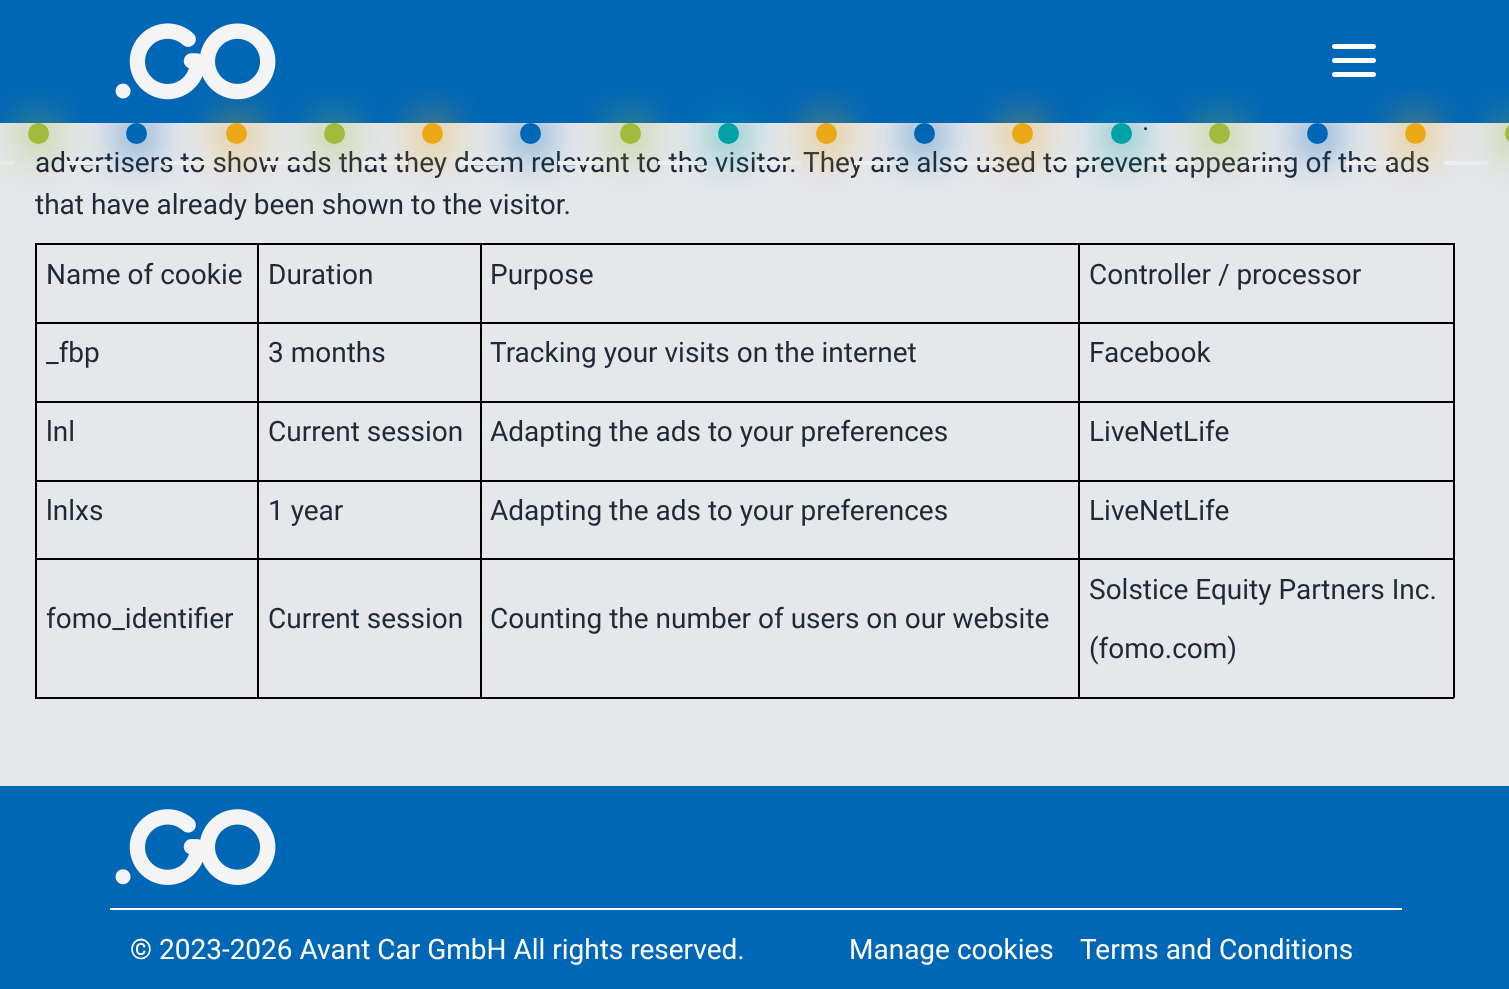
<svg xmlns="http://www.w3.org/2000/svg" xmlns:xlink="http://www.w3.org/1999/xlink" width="1509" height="989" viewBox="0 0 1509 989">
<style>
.cls-1{font:28px Roboto;fill:#1f2937}
.cls-2{font:28px Roboto;fill:#ffffff}
</style>
<defs>
<clipPath id="clip1"><rect x="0" y="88" width="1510" height="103"/></clipPath>
</defs>
<rect width="100%" height="100%" fill="#e5e7eb"/>
<rect fill="#0067b6" x="0" y="0" width="1509" height="123"/>
<path fill="#ffffff" d="M1334.5 44H1353V49H1334.5C1333 49 1332 48 1332 46.5C1332 45 1333 44 1334.5 44Z"/>
<path fill="#ffffff" d="M1353 44H1373.5C1375 44 1376 45 1376 46.5C1376 48 1375 49 1373.5 49H1353Z"/>
<rect fill="#eeeeee" x="0" y="161" width="14" height="4"/>
<g clip-path="url(#clip1)">
<rect fill="#a3ba3c" filter="blur(21px)" x="23" y="121" width="31" height="31" rx="15.5"/>
</g>
<circle fill="#a3ba3c" cx="38.5" cy="133.5" r="10.5"/>
<rect fill="#000000" x="35" y="243" width="1419" height="2"/>
<rect fill="#000000" x="1453" y="243" width="2" height="455"/>
<rect fill="#000000" x="35" y="697" width="1419" height="2"/>
<rect fill="#000000" x="35" y="243" width="2" height="455"/>
<rect fill="#000000" x="1078" y="322" width="376" height="2"/>
<rect fill="#000000" x="1078" y="401" width="376" height="2"/>
<rect fill="#000000" x="1078" y="480" width="376" height="2"/>
<rect fill="#000000" x="1078" y="558" width="376" height="2"/>
<rect fill="#000000" x="1078" y="558" width="2" height="140"/>
<rect fill="#000000" x="480" y="558" width="600" height="2"/>
<rect fill="#000000" x="1078" y="480" width="2" height="80"/>
<rect fill="#000000" x="480" y="480" width="600" height="2"/>
<rect fill="#000000" x="1078" y="401" width="2" height="80"/>
<rect fill="#000000" x="480" y="401" width="600" height="2"/>
<rect fill="#000000" x="1078" y="322" width="2" height="81"/>
<rect fill="#000000" x="480" y="322" width="600" height="2"/>
<rect fill="#000000" x="480" y="558" width="2" height="140"/>
<rect fill="#000000" x="257" y="558" width="224" height="2"/>
<rect fill="#000000" x="480" y="480" width="2" height="80"/>
<rect fill="#000000" x="257" y="480" width="224" height="2"/>
<rect fill="#000000" x="480" y="401" width="2" height="80"/>
<rect fill="#000000" x="257" y="401" width="224" height="2"/>
<rect fill="#000000" x="480" y="322" width="2" height="81"/>
<rect fill="#000000" x="257" y="322" width="224" height="2"/>
<rect fill="#000000" x="257" y="558" width="2" height="140"/>
<rect fill="#000000" x="35" y="558" width="224" height="2"/>
<rect fill="#000000" x="257" y="480" width="2" height="80"/>
<rect fill="#000000" x="35" y="480" width="224" height="2"/>
<rect fill="#000000" x="257" y="401" width="2" height="80"/>
<rect fill="#000000" x="35" y="401" width="224" height="2"/>
<rect fill="#000000" x="257" y="322" width="2" height="81"/>
<rect fill="#000000" x="35" y="322" width="224" height="2"/>
<rect fill="#000000" x="257" y="243" width="2" height="81"/>
<rect fill="#000000" x="480" y="243" width="2" height="81"/>
<rect fill="#000000" x="1078" y="243" width="2" height="81"/>
<rect fill="#0067b6" x="0" y="786" width="1509" height="203"/>
<image xlink:href="image1.png" x="115" y="809" width="161" height="76"/>
<rect fill="#ffffff" x="110" y="908" width="1292" height="2"/>
<text class="cls-1" x="1142" y="130">.</text>
<text class="cls-1" x="35" y="172">advertisers to show ads that they deem relevant to the visitor. They are also used to prevent appearing of the ads</text>
<rect fill="#eeeeee" x="67" y="161" width="45" height="4"/>
<g clip-path="url(#clip1)">
<rect fill="#0067b6" filter="blur(21px)" x="121" y="121" width="31" height="31" rx="15.5"/>
</g>
<rect fill="#eeeeee" x="165" y="161" width="45" height="4"/>
<rect fill="#eca917" filter="blur(21px)" x="221" y="121" width="31" height="31" rx="15.5"/>
<rect fill="#eeeeee" x="264" y="161" width="46" height="4"/>
<g clip-path="url(#clip1)">
<rect fill="#a3ba3c" filter="blur(21px)" x="319" y="121" width="31" height="31" rx="15.5"/>
</g>
<rect fill="#eeeeee" x="362" y="161" width="46" height="4"/>
<g clip-path="url(#clip1)">
<rect fill="#eca917" filter="blur(21px)" x="417" y="121" width="31" height="31" rx="15.5"/>
</g>
<rect fill="#eeeeee" x="460" y="161" width="46" height="4"/>
<g clip-path="url(#clip1)">
<rect fill="#0067b6" filter="blur(21px)" x="515" y="121" width="31" height="31" rx="15.5"/>
</g>
<rect fill="#eeeeee" x="558" y="161" width="46" height="4"/>
<g clip-path="url(#clip1)">
<rect fill="#a3ba3c" filter="blur(21px)" x="614" y="121" width="32" height="31" rx="15.5"/>
</g>
<rect fill="#eeeeee" x="658" y="161" width="46" height="4"/>
<g clip-path="url(#clip1)">
<rect fill="#00a2a7" filter="blur(21px)" x="712" y="121" width="32" height="31" rx="15.5"/>
</g>
<rect fill="#eeeeee" x="756" y="161" width="46" height="4"/>
<g clip-path="url(#clip1)">
<rect fill="#eca917" filter="blur(21px)" x="810" y="121" width="32" height="31" rx="15.5"/>
</g>
<rect fill="#eeeeee" x="854" y="161" width="46" height="4"/>
<g clip-path="url(#clip1)">
<rect fill="#0067b6" filter="blur(21px)" x="908" y="121" width="32" height="31" rx="15.5"/>
</g>
<rect fill="#eeeeee" x="952" y="161" width="46" height="4"/>
<g clip-path="url(#clip1)">
<rect fill="#eca917" filter="blur(21px)" x="1006" y="121" width="32" height="31" rx="15.5"/>
</g>
<rect fill="#eeeeee" x="1050" y="161" width="46" height="4"/>
<g clip-path="url(#clip1)">
<rect fill="#00a2a7" filter="blur(21px)" x="1106" y="121" width="32" height="31" rx="15.5"/>
</g>
<rect fill="#eeeeee" x="1150" y="161" width="45" height="4"/>
<g clip-path="url(#clip1)">
<rect fill="#a3ba3c" filter="blur(21px)" x="1204" y="121" width="32" height="31" rx="15.5"/>
</g>
<rect fill="#eeeeee" x="1248" y="161" width="45" height="4"/>
<g clip-path="url(#clip1)">
<rect fill="#0067b6" filter="blur(21px)" x="1302" y="121" width="32" height="31" rx="15.5"/>
</g>
<rect fill="#eeeeee" x="1346" y="161" width="45" height="4"/>
<g clip-path="url(#clip1)">
<rect fill="#eca917" filter="blur(21px)" x="1400" y="121" width="32" height="31" rx="15.5"/>
</g>
<path fill="#ffffff" d="M1353 72H1373.5C1375 72 1376 73 1376 74.5C1376 76 1375 77 1373.5 77H1353Z"/>
<path fill="#ffffff" d="M1334.5 72H1353V77H1334.5C1333 77 1332 76 1332 74.5C1332 73 1333 72 1334.5 72Z"/>
<path fill="#ffffff" d="M1353 58H1373.5C1375 58 1376 59 1376 60.5C1376 62 1375 63 1373.5 63H1353Z"/>
<path fill="#ffffff" d="M1334.5 58H1353V63H1334.5C1333 63 1332 62 1332 60.5C1332 59 1333 58 1334.5 58Z"/>
<image xlink:href="image0.png" x="115" y="23" width="161" height="77"/>
<rect fill="#eeeeee" x="1444" y="161" width="45" height="4"/>
<g clip-path="url(#clip1)">
<rect fill="#a3ba3c" filter="blur(21px)" x="1500" y="121" width="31" height="31" rx="15.5"/>
</g>
<path fill="#a3ba3c" d="M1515.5 123H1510V144H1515.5C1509.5 144 1505 139.5 1505 133.5C1505 127.5 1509.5 123 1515.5 123Z"/>
<circle fill="#eca917" cx="1415.5" cy="133.5" r="10.5"/>
<circle fill="#0067b6" cx="1317.5" cy="133.5" r="10.5"/>
<circle fill="#a3ba3c" cx="1219.5" cy="133.5" r="10.5"/>
<circle fill="#00a2a7" cx="1121.5" cy="133.5" r="10.5"/>
<circle fill="#eca917" cx="1022.5" cy="133.5" r="10.5"/>
<circle fill="#0067b6" cx="924.5" cy="133.5" r="10.5"/>
<circle fill="#eca917" cx="826.5" cy="133.5" r="10.5"/>
<circle fill="#00a2a7" cx="728.5" cy="133.5" r="10.5"/>
<circle fill="#a3ba3c" cx="630.5" cy="133.5" r="10.5"/>
<circle fill="#0067b6" cx="530.5" cy="133.5" r="10.5"/>
<circle fill="#eca917" cx="432.5" cy="133.5" r="10.5"/>
<circle fill="#a3ba3c" cx="334.5" cy="133.5" r="10.5"/>
<circle fill="#eca917" cx="236.5" cy="133.5" r="10.5"/>
<circle fill="#0067b6" cx="136.5" cy="133.5" r="10.5"/>
<text class="cls-1" x="35" y="214">that have already been shown to the visitor.</text>
<text class="cls-1" x="46" y="284">Name of cookie</text>
<text class="cls-1" x="268" y="284">Duration</text>
<text class="cls-1" x="490" y="284">Purpose</text>
<text class="cls-1" x="1089" y="284">Controller / processor</text>
<text class="cls-1" x="46" y="362">_fbp</text>
<text class="cls-1" x="268" y="362">3 months</text>
<text class="cls-1" x="490" y="362">Tracking your visits on the internet</text>
<text class="cls-1" x="1089" y="362">Facebook</text>
<text class="cls-1" x="46" y="441">lnl</text>
<text class="cls-1" x="268" y="441">Current session</text>
<text class="cls-1" x="490" y="441">Adapting the ads to your preferences</text>
<text class="cls-1" x="1089" y="441">LiveNetLife</text>
<text class="cls-1" x="46" y="520">lnlxs</text>
<text class="cls-1" x="268" y="520">1 year</text>
<text class="cls-1" x="490" y="520">Adapting the ads to your preferences</text>
<text class="cls-1" x="1089" y="520">LiveNetLife</text>
<text class="cls-1" x="46" y="628">fomo_identifier</text>
<text class="cls-1" x="268" y="628">Current session</text>
<text class="cls-1" x="490" y="628">Counting the number of users on our website</text>
<text class="cls-1" x="1089" y="599">Solstice Equity Partners Inc.</text>
<text class="cls-1" x="1089" y="658">(fomo.com)</text>
<text class="cls-2" x="130" y="959">© 2023-2026 Avant Car GmbH All rights reserved.</text>
<text class="cls-2" x="849" y="959">Manage cookies</text>
<text class="cls-2" x="1080" y="959">Terms and Conditions</text>
</svg>
